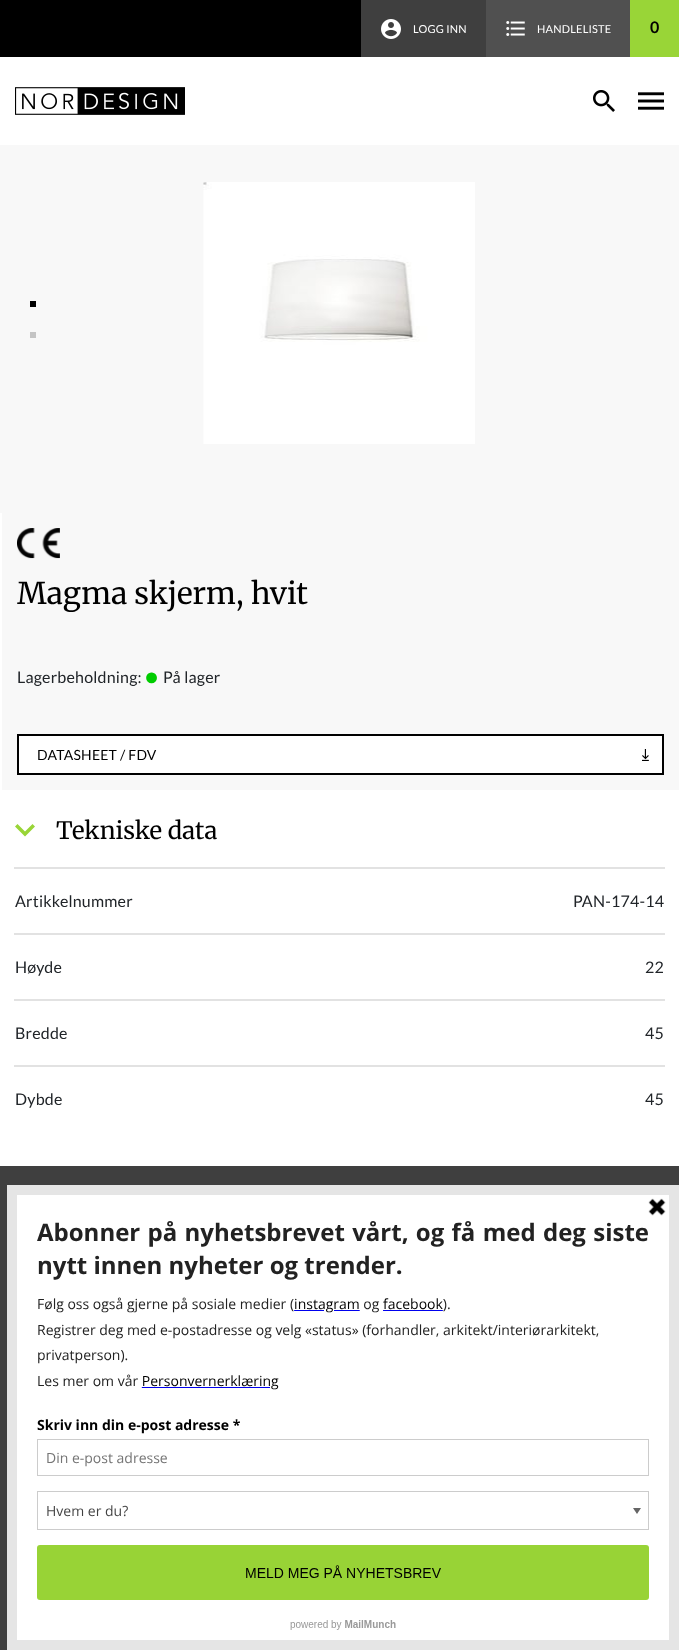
<svg xmlns="http://www.w3.org/2000/svg" xmlns:xlink="http://www.w3.org/1999/xlink" width="679" height="1650" viewBox="0 0 679 1650">
<style>
.cls-1{font:11px Lato;letter-spacing:0.2px;fill:#ffffff}
.cls-2{font:bold 16px Lato;letter-spacing:0.2px;fill:#000000}
.cls-3{font:300 30px Merriweather;fill:#000000}
.cls-4{font:16px Lato;letter-spacing:0.2px;fill:#212529}
.cls-5{font:25px Liberation Sans;letter-spacing:0.2px;fill:#00cc00}
.cls-6{font:14px Lato;letter-spacing:0.2px;fill:#000000}
.cls-7{font:300 24px Merriweather;fill:#000000}
</style>
<rect width="100%" height="100%" fill="#ffffff"/>
<rect fill="#000000" x="0" y="0" width="361" height="57"/>
<rect fill="#3f3f3f" x="361" y="0" width="125" height="57"/>
<image xlink:href="image0.png" x="381" y="19" width="20" height="20"/>
<rect fill="#505050" x="486" y="0" width="144" height="57"/>
<image xlink:href="image1.png" x="506" y="21" width="19" height="15"/>
<rect fill="#99d537" x="630" y="0" width="49" height="57"/>
<image xlink:href="image2.png" x="15" y="87" width="170" height="28"/>
<image xlink:href="image3.png" x="593" y="90" width="22" height="22"/>
<image xlink:href="image4.png" x="638" y="92" width="26" height="18"/>
<rect fill="#f8f8f8" x="0" y="145" width="679" height="645"/>
<rect fill="#000000" x="30" y="301" width="6" height="6"/>
<rect fill="#c4c4c4" x="30" y="332" width="6" height="6"/>
<image xlink:href="image5.png" x="203" y="182" width="272" height="262"/>
<rect fill="#ffffff" x="0" y="513" width="2" height="277"/>
<image xlink:href="image6.png" x="17" y="528" width="43" height="31"/>
<rect fill="#ffffff" stroke="#000000" stroke-width="2" x="18" y="735" width="645" height="39"/>
<image xlink:href="image7.png" x="642" y="749" width="7" height="12"/>
<path fill="#99d537" d="M17.5 824L25 831.5L32.5 824L35 826.5L25 836.5L15 826.5Z"/>
<rect fill="#e2e2e2" x="14" y="867" width="651" height="2"/>
<rect fill="#e2e2e2" x="14" y="933" width="651" height="2"/>
<rect fill="#e2e2e2" x="14" y="999" width="651" height="2"/>
<rect fill="#e2e2e2" x="14" y="1065" width="651" height="2"/>
<rect fill="#3f3f3f" x="0" y="1166" width="679" height="484"/>
<image xlink:href="image8.png" x="7" y="1185" width="672" height="465"/>
<text class="cls-1" x="413" y="33">LOGG INN</text>
<text class="cls-1" x="537" y="33">HANDLELISTE</text>
<text class="cls-2" x="650" y="33">0</text>
<text class="cls-3" x="17" y="604">Magma skjerm, hvit</text>
<text class="cls-4" x="17" y="683">Lagerbeholdning:</text>
<text class="cls-5" x="144" y="685">●</text>
<text class="cls-4" x="163" y="683">På lager</text>
<text class="cls-6" x="37" y="760">DATASHEET / FDV</text>
<text class="cls-7" x="56" y="839">Tekniske data</text>
<text class="cls-4" x="15" y="907">Artikkelnummer</text>
<text class="cls-4" x="573" y="907">PAN-174-14</text>
<text class="cls-4" x="15" y="973">Høyde</text>
<text class="cls-4" x="645" y="973">22</text>
<text class="cls-4" x="15" y="1039">Bredde</text>
<text class="cls-4" x="645" y="1039">45</text>
<text class="cls-4" x="15" y="1105">Dybde</text>
<text class="cls-4" x="645" y="1105">45</text>
</svg>
